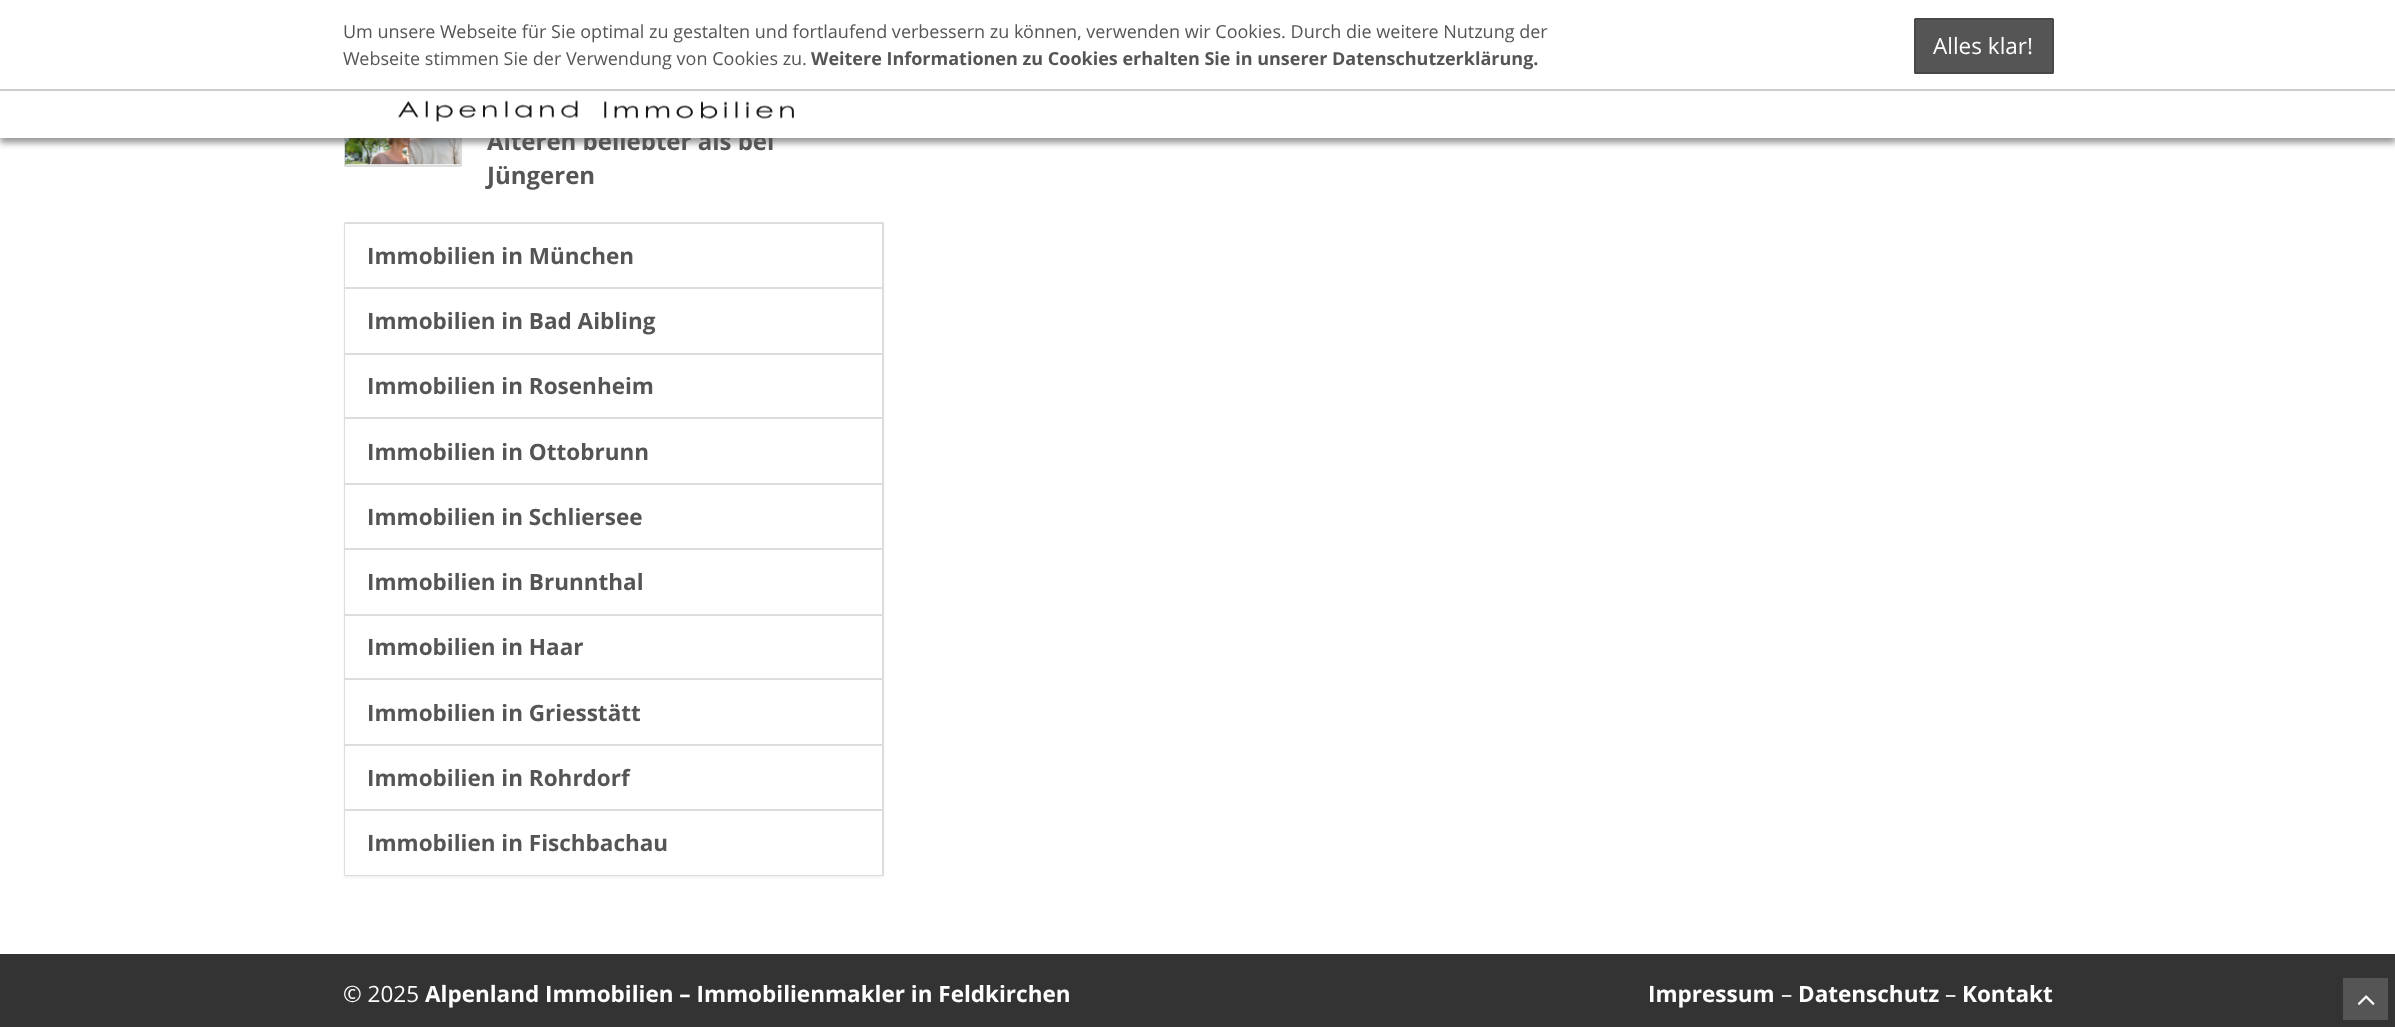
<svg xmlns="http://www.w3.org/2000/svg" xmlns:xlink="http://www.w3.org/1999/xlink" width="2395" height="1027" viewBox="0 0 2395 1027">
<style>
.cls-1{font:18px Open Sans;fill:#555555}
.cls-2{font:bold 18px Open Sans;fill:#555555}
.cls-3{font:22.5px Open Sans;fill:#ffffff}
.cls-4{font:bold 24px Open Sans;fill:#555555}
.cls-5{font:bold 22.5px Open Sans;fill:#555555}
.cls-6{font:bold 22.5px Open Sans;fill:#ffffff}
</style>
<rect width="100%" height="100%" fill="#ffffff"/>
<rect fill="none" stroke="#dddddd" stroke-width="2" x="345" y="93" width="116" height="73" rx="0.5"/>
<image xlink:href="image1.png" x="345" y="138" width="116" height="27"/>
<rect fill="#000000" fill-opacity="0.4" filter="blur(3px)" x="0" y="5" width="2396" height="138"/>
<rect fill="#ffffff" x="0" y="0" width="2395" height="89"/>
<rect fill="#cccccc" x="0" y="89" width="2395" height="2"/>
<rect fill="#555555" stroke="#484848" stroke-width="2" x="1915" y="19" width="138" height="54" rx="0.5"/>
<rect fill="#000000" fill-opacity="0.05" filter="blur(1px)" x="344" y="224" width="540" height="654" rx="1.5"/>
<rect fill="none" stroke="#dddddd" stroke-width="2" x="345" y="223" width="538" height="652" rx="0.5"/>
<rect fill="#ffffff" x="345" y="224" width="537" height="63"/>
<rect fill="#ffffff" x="345" y="289" width="537" height="64"/>
<rect fill="#dddddd" x="345" y="287" width="537" height="2"/>
<rect fill="#ffffff" x="345" y="355" width="537" height="62"/>
<rect fill="#dddddd" x="345" y="353" width="537" height="2"/>
<rect fill="#dddddd" x="345" y="417" width="537" height="2"/>
<rect fill="#ffffff" x="345" y="419" width="537" height="64"/>
<rect fill="#dddddd" x="345" y="483" width="537" height="2"/>
<rect fill="#ffffff" x="345" y="485" width="537" height="63"/>
<rect fill="#ffffff" x="345" y="550" width="537" height="64"/>
<rect fill="#dddddd" x="345" y="548" width="537" height="2"/>
<rect fill="#ffffff" x="345" y="616" width="537" height="62"/>
<rect fill="#dddddd" x="345" y="614" width="537" height="2"/>
<rect fill="#dddddd" x="345" y="678" width="537" height="2"/>
<rect fill="#ffffff" x="345" y="680" width="537" height="64"/>
<rect fill="#dddddd" x="345" y="744" width="537" height="2"/>
<rect fill="#ffffff" x="345" y="746" width="537" height="63"/>
<rect fill="#ffffff" x="345" y="811" width="537" height="64"/>
<rect fill="#dddddd" x="345" y="809" width="537" height="2"/>
<rect fill="#333333" x="0" y="954" width="2395" height="73"/>
<rect fill="#555555" x="2343" y="978" width="45" height="42"/>
<image xlink:href="image2.png" x="2357" y="995" width="18" height="10"/>
<text class="cls-1"><tspan x="343" y="38">Um unsere Webseite für Sie optimal zu gestalten und fortlaufend verbessern zu können, verwenden wir Cookies. Durch die weitere Nutzung der</tspan><tspan x="343" y="65">Webseite stimmen Sie der Verwendung von Cookies zu.</tspan></text>
<text class="cls-2" x="811" y="65">Weitere Informationen zu Cookies erhalten Sie in unserer Datenschutzerklärung.</text>
<text class="cls-3" x="1933" y="54">Alles klar!</text>
<text class="cls-4" x="487" y="150">Älteren beliebter als bei</text>
<rect fill="#ffffff" x="0" y="91" width="2395" height="47"/>
<image xlink:href="image0.png" x="398" y="100" width="396" height="22"/>
<text class="cls-4" x="487" y="184">Jüngeren</text>
<text class="cls-5" x="367" y="264">Immobilien in München</text>
<text class="cls-5" x="367" y="329">Immobilien in Bad Aibling</text>
<text class="cls-5" x="367" y="394">Immobilien in Rosenheim</text>
<text class="cls-5" x="367" y="460">Immobilien in Ottobrunn</text>
<text class="cls-5" x="367" y="525">Immobilien in Schliersee</text>
<text class="cls-5" x="367" y="590">Immobilien in Brunnthal</text>
<text class="cls-5" x="367" y="655">Immobilien in Haar</text>
<text class="cls-5" x="367" y="721">Immobilien in Griesstätt</text>
<text class="cls-5" x="367" y="786">Immobilien in Rohrdorf</text>
<text class="cls-5" x="367" y="851">Immobilien in Fischbachau</text>
<text class="cls-3" x="343" y="1002">© 2025</text>
<text class="cls-6" x="425" y="1002">Alpenland Immobilien – Immobilienmakler in Feldkirchen</text>
<text class="cls-6" x="1648" y="1002">Impressum</text>
<text class="cls-3" x="1781" y="1002">–</text>
<text class="cls-6" x="1798" y="1002">Datenschutz</text>
<text class="cls-3" x="1945" y="1002">–</text>
<text class="cls-6" x="1962" y="1002">Kontakt</text>
</svg>
